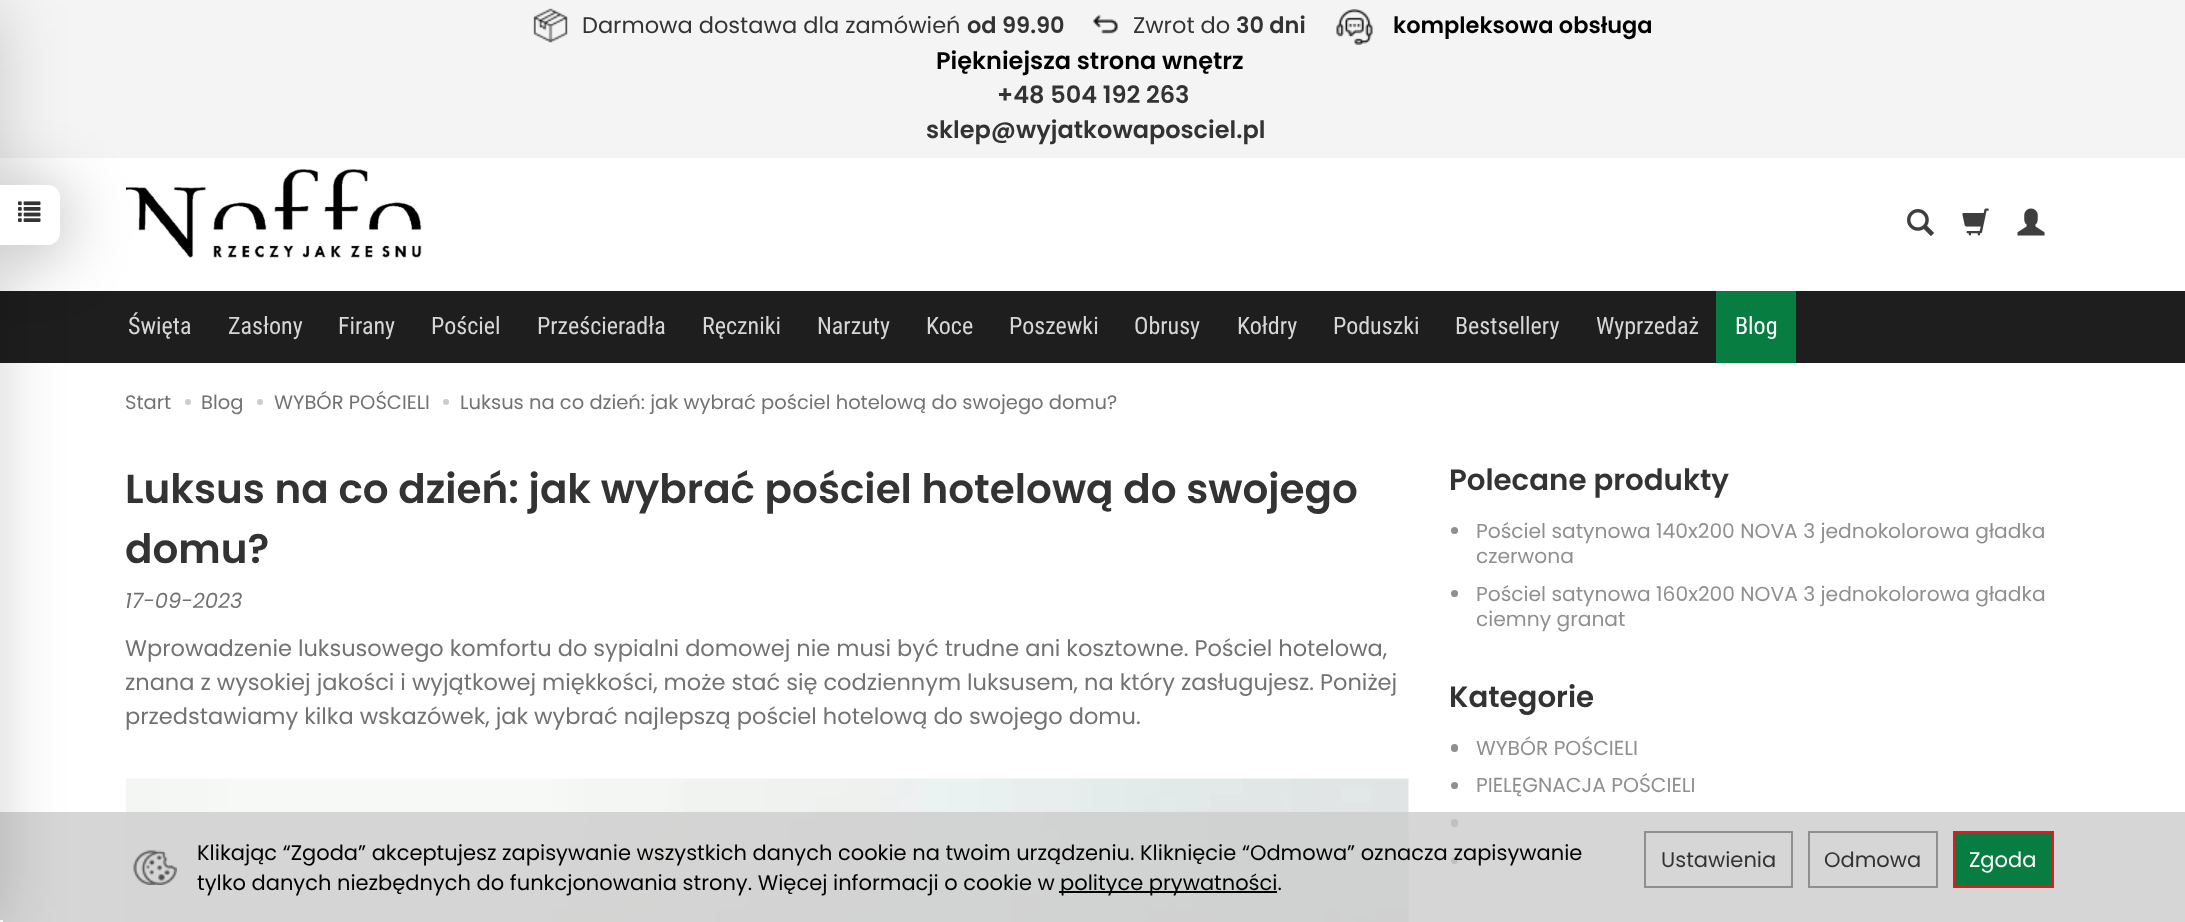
<svg xmlns="http://www.w3.org/2000/svg" xmlns:xlink="http://www.w3.org/1999/xlink" width="2185" height="922" viewBox="0 0 2185 922">
<style>
.cls-1{font:22.5px Poppins;fill:#333333}
.cls-2{font:600 22.5px Poppins;fill:#333333}
.cls-3{font:600 22.5px Poppins;fill:#000000}
.cls-4{font:600 24px Poppins;fill:#000000}
.cls-5{font:600 24px Poppins;fill:#333333}
.cls-6{font:24px Roboto Condensed;fill:#d6d6d6}
.cls-7{font:24px Roboto Condensed;fill:#ffffff}
.cls-8{font:19.5px Poppins;fill:#727272}
.cls-9{font:600 40.5px Poppins;fill:#333333}
.cls-10{font:italic 21px Poppins;fill:#727272}
.cls-11{font:22.5px Poppins;fill:#727272}
.cls-12{font:600 29.25px Poppins;fill:#333333}
.cls-13{font:20.25px Poppins;fill:#8f8f8f}
.cls-14{font:21px Poppins;fill:#000000}
.cls-15{font:21px Poppins;fill:#333333}
.cls-16{font:21px Poppins;fill:#ffffff}
</style>
<rect width="100%" height="100%" fill="#ffffff"/>
<rect fill="#f4f4f4" x="0" y="0" width="2185" height="158"/>
<rect fill="#1e1e1e" x="0" y="291" width="2185" height="72"/>
<image xlink:href="image8.png" x="126" y="778" width="1283" height="144"/>
<rect fill="#8f8f8f" x="1451" y="819" width="7" height="8" rx="3.5"/>
<circle fill="#8f8f8f" cx="1454.5" cy="860.5" r="3.5"/>
<rect fill="#cccccc" fill-opacity="0.8" x="0" y="812" width="2185" height="110"/>
<rect fill="#000000" fill-opacity="0.17" filter="blur(33px)" x="-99" y="6" width="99" height="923"/>
<image xlink:href="image4.png" x="126" y="169" width="296" height="89"/>
<rect fill="#000000" fill-opacity="0.35" filter="blur(34px)" x="0" y="191" width="60" height="60" rx="12"/>
<path fill="#ffffff" d="M0 185H48C54.5 185 60 190.5 60 197V233C60 239.5 54.5 245 48 245H0Z"/>
<image xlink:href="image0.png" x="18" y="201" width="23" height="21"/>
<image xlink:href="image1.png" x="533" y="8" width="35" height="35"/>
<image xlink:href="image2.png" x="1093" y="14" width="25" height="20"/>
<image xlink:href="image3.png" x="1336" y="9" width="37" height="36"/>
<image xlink:href="image5.png" x="1907" y="209" width="27" height="27"/>
<image xlink:href="image6.png" x="1962" y="208" width="27" height="28"/>
<image xlink:href="image7.png" x="2017" y="208" width="28" height="28"/>
<rect fill="#077d42" x="1716" y="291" width="80" height="72"/>
<circle fill="#cccccc" cx="188" cy="402" r="3"/>
<circle fill="#cccccc" cx="260" cy="402" r="3"/>
<circle fill="#cccccc" cx="446" cy="402" r="3"/>
<circle fill="#8f8f8f" cx="1454.5" cy="530.5" r="3.5"/>
<circle fill="#8f8f8f" cx="1454.5" cy="593.5" r="3.5"/>
<rect fill="#8f8f8f" x="1451" y="744" width="7" height="8" rx="3.5"/>
<circle fill="#8f8f8f" cx="1454.5" cy="785.5" r="3.5"/>
<image xlink:href="image9.png" x="133" y="850" width="44" height="35"/>
<rect fill="#000000" x="1059" y="891" width="218" height="2"/>
<rect fill="none" stroke="#8f8f8f" stroke-width="2" x="1645" y="832" width="147" height="55"/>
<rect fill="none" stroke="#8f8f8f" stroke-width="2" x="1809" y="832" width="128" height="55"/>
<rect fill="#077d42" stroke="#e11a22" stroke-width="2" x="1954" y="832" width="99" height="55"/>
<rect fill="#f5f5f5" x="0" y="920" width="3" height="2"/>
<text class="cls-1" x="582" y="33">Darmowa dostawa dla zamówień</text>
<text class="cls-2" x="967" y="33">od 99.90</text>
<text class="cls-1" x="1133" y="33">Zwrot do</text>
<text class="cls-2" x="1236" y="33">30 dni</text>
<text class="cls-3" x="1393" y="33">kompleksowa obsługa</text>
<text class="cls-4" x="936" y="69">Piękniejsza strona wnętrz</text>
<text class="cls-5" x="997" y="103">+48 504 192 263</text>
<text class="cls-5" x="926" y="138">sklep@wyjatkowaposciel.pl</text>
<text class="cls-6" x="128" y="334">Święta</text>
<text class="cls-6" x="228" y="334">Zasłony</text>
<text class="cls-6" x="338" y="334">Firany</text>
<text class="cls-6" x="431" y="334">Pościel</text>
<text class="cls-6" x="537" y="334">Prześcieradła</text>
<text class="cls-6" x="702" y="334">Ręczniki</text>
<text class="cls-6" x="817" y="334">Narzuty</text>
<text class="cls-6" x="926" y="334">Koce</text>
<text class="cls-6" x="1009" y="334">Poszewki</text>
<text class="cls-6" x="1134" y="334">Obrusy</text>
<text class="cls-6" x="1237" y="334">Kołdry</text>
<text class="cls-6" x="1333" y="334">Poduszki</text>
<text class="cls-6" x="1455" y="334">Bestsellery</text>
<text class="cls-6" x="1596" y="334">Wyprzedaż</text>
<text class="cls-7" x="1735" y="334">Blog</text>
<text class="cls-8" x="125" y="409">Start</text>
<text class="cls-8" x="201" y="409">Blog</text>
<text class="cls-8" x="274" y="409">WYBÓR POŚCIELI</text>
<text class="cls-8" x="460" y="409">Luksus na co dzień: jak wybrać pościel hotelową do swojego domu?</text>
<text class="cls-9"><tspan x="125" y="503">Luksus na co dzień: jak wybrać pościel hotelową do swojego</tspan><tspan x="125" y="563">domu?</tspan></text>
<text class="cls-10" x="125" y="608">17-09-2023</text>
<text class="cls-11"><tspan x="125" y="656">Wprowadzenie luksusowego komfortu do sypialni domowej nie musi być trudne ani kosztowne. Pościel hotelowa,</tspan><tspan x="125" y="690">znana z wysokiej jakości i wyjątkowej miękkości, może stać się codziennym luksusem, na który zasługujesz. Poniżej</tspan><tspan x="125" y="724">przedstawiamy kilka wskazówek, jak wybrać najlepszą pościel hotelową do swojego domu.</tspan></text>
<text class="cls-12" x="1449" y="490">Polecane produkty</text>
<text class="cls-13"><tspan x="1476" y="538">Pościel satynowa 140x200 NOVA 3 jednokolorowa gładka</tspan><tspan x="1476" y="563">czerwona</tspan><tspan x="1476" y="601">Pościel satynowa 160x200 NOVA 3 jednokolorowa gładka</tspan><tspan x="1476" y="626">ciemny granat</tspan></text>
<text class="cls-12" x="1449" y="707">Kategorie</text>
<text class="cls-13"><tspan x="1476" y="755">WYBÓR POŚCIELI</tspan><tspan x="1476" y="792">PIELĘGNACJA POŚCIELI</tspan></text>
<text class="cls-14"><tspan x="197" y="860">Klikając “Zgoda” akceptujesz zapisywanie wszystkich danych cookie na twoim urządzeniu. Kliknięcie “Odmowa” oznacza zapisywanie</tspan><tspan x="197" y="890">tylko danych niezbędnych do funkcjonowania strony. Więcej informacji o cookie w</tspan></text>
<text class="cls-14" x="1060" y="890">polityce prywatności.</text>
<text class="cls-15" x="1661" y="867">Ustawienia</text>
<text class="cls-15" x="1824" y="867">Odmowa</text>
<text class="cls-16" x="1969" y="867">Zgoda</text>
</svg>
